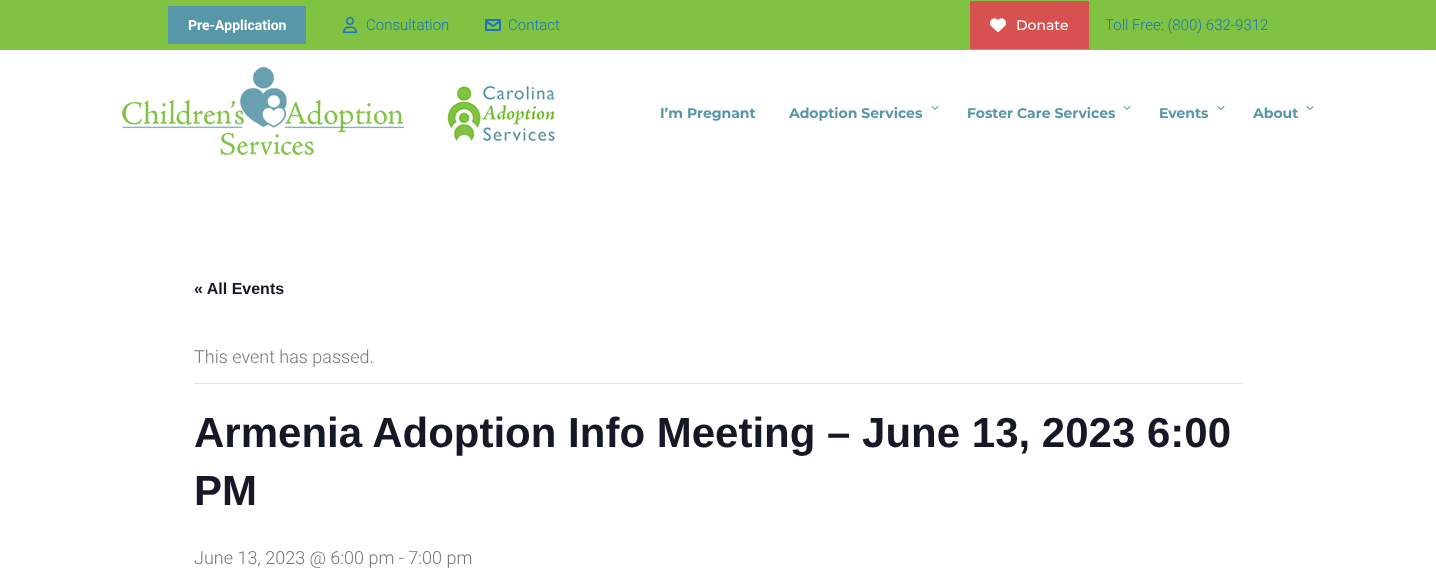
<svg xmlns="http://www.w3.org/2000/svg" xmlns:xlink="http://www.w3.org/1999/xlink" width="1436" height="587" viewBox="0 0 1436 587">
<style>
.cls-1{font:bold 14px Roboto;fill:#ffffff}
.cls-2{font:300 15px Roboto;fill:#1e73be}
.cls-3{font:500 14px Montserrat;fill:#ffffff}
.cls-4{font:bold 14px Montserrat;fill:#5797a8}
.cls-5{font:bold 16px Liberation Sans;fill:#141827}
.cls-6{font:300 18px Roboto;fill:#76767a}
.cls-7{font:bold 42px Liberation Sans;fill:#141827}
</style>
<rect width="100%" height="100%" fill="#ffffff"/>
<rect fill="#80c242" x="0" y="0" width="1436" height="50"/>
<rect fill="#5797a8" x="168" y="6" width="138" height="38"/>
<image xlink:href="image0.png" x="343" y="17" width="14" height="16"/>
<image xlink:href="image1.png" x="485" y="19" width="16" height="12"/>
<rect fill="#d85151" x="970" y="1" width="119" height="48"/>
<image xlink:href="image2.png" x="990" y="18" width="16" height="14"/>
<image xlink:href="image3.png" x="122" y="67" width="433" height="88"/>
<image xlink:href="image4.png" x="931" y="106" width="8" height="4"/>
<image xlink:href="image4.png" x="1123" y="106" width="8" height="4"/>
<image xlink:href="image4.png" x="1217" y="106" width="8" height="4"/>
<image xlink:href="image4.png" x="1306" y="106" width="8" height="4"/>
<rect fill="#e4e4e4" x="194" y="383" width="1048" height="1"/>
<text class="cls-1" x="188" y="30">Pre-Application</text>
<text class="cls-2" x="366" y="30">Consultation</text>
<text class="cls-2" x="508" y="30">Contact</text>
<text class="cls-3" x="1016" y="30">Donate</text>
<text class="cls-2" x="1105" y="30">Toll Free: (800) 632-9312</text>
<text class="cls-4" x="660" y="118">I’m Pregnant</text>
<text class="cls-4" x="789" y="118">Adoption Services</text>
<text class="cls-4" x="967" y="118">Foster Care Services</text>
<text class="cls-4" x="1159" y="118">Events</text>
<text class="cls-4" x="1253" y="118">About</text>
<text class="cls-5" x="194" y="294">« All Events</text>
<text class="cls-6" x="194" y="363">This event has passed.</text>
<text class="cls-7"><tspan x="194" y="447">Armenia Adoption Info Meeting – June 13, 2023 6:00</tspan><tspan x="194" y="505">PM</tspan></text>
<text class="cls-6" x="194" y="564">June 13, 2023 @ 6:00 pm - 7:00 pm</text>
</svg>
